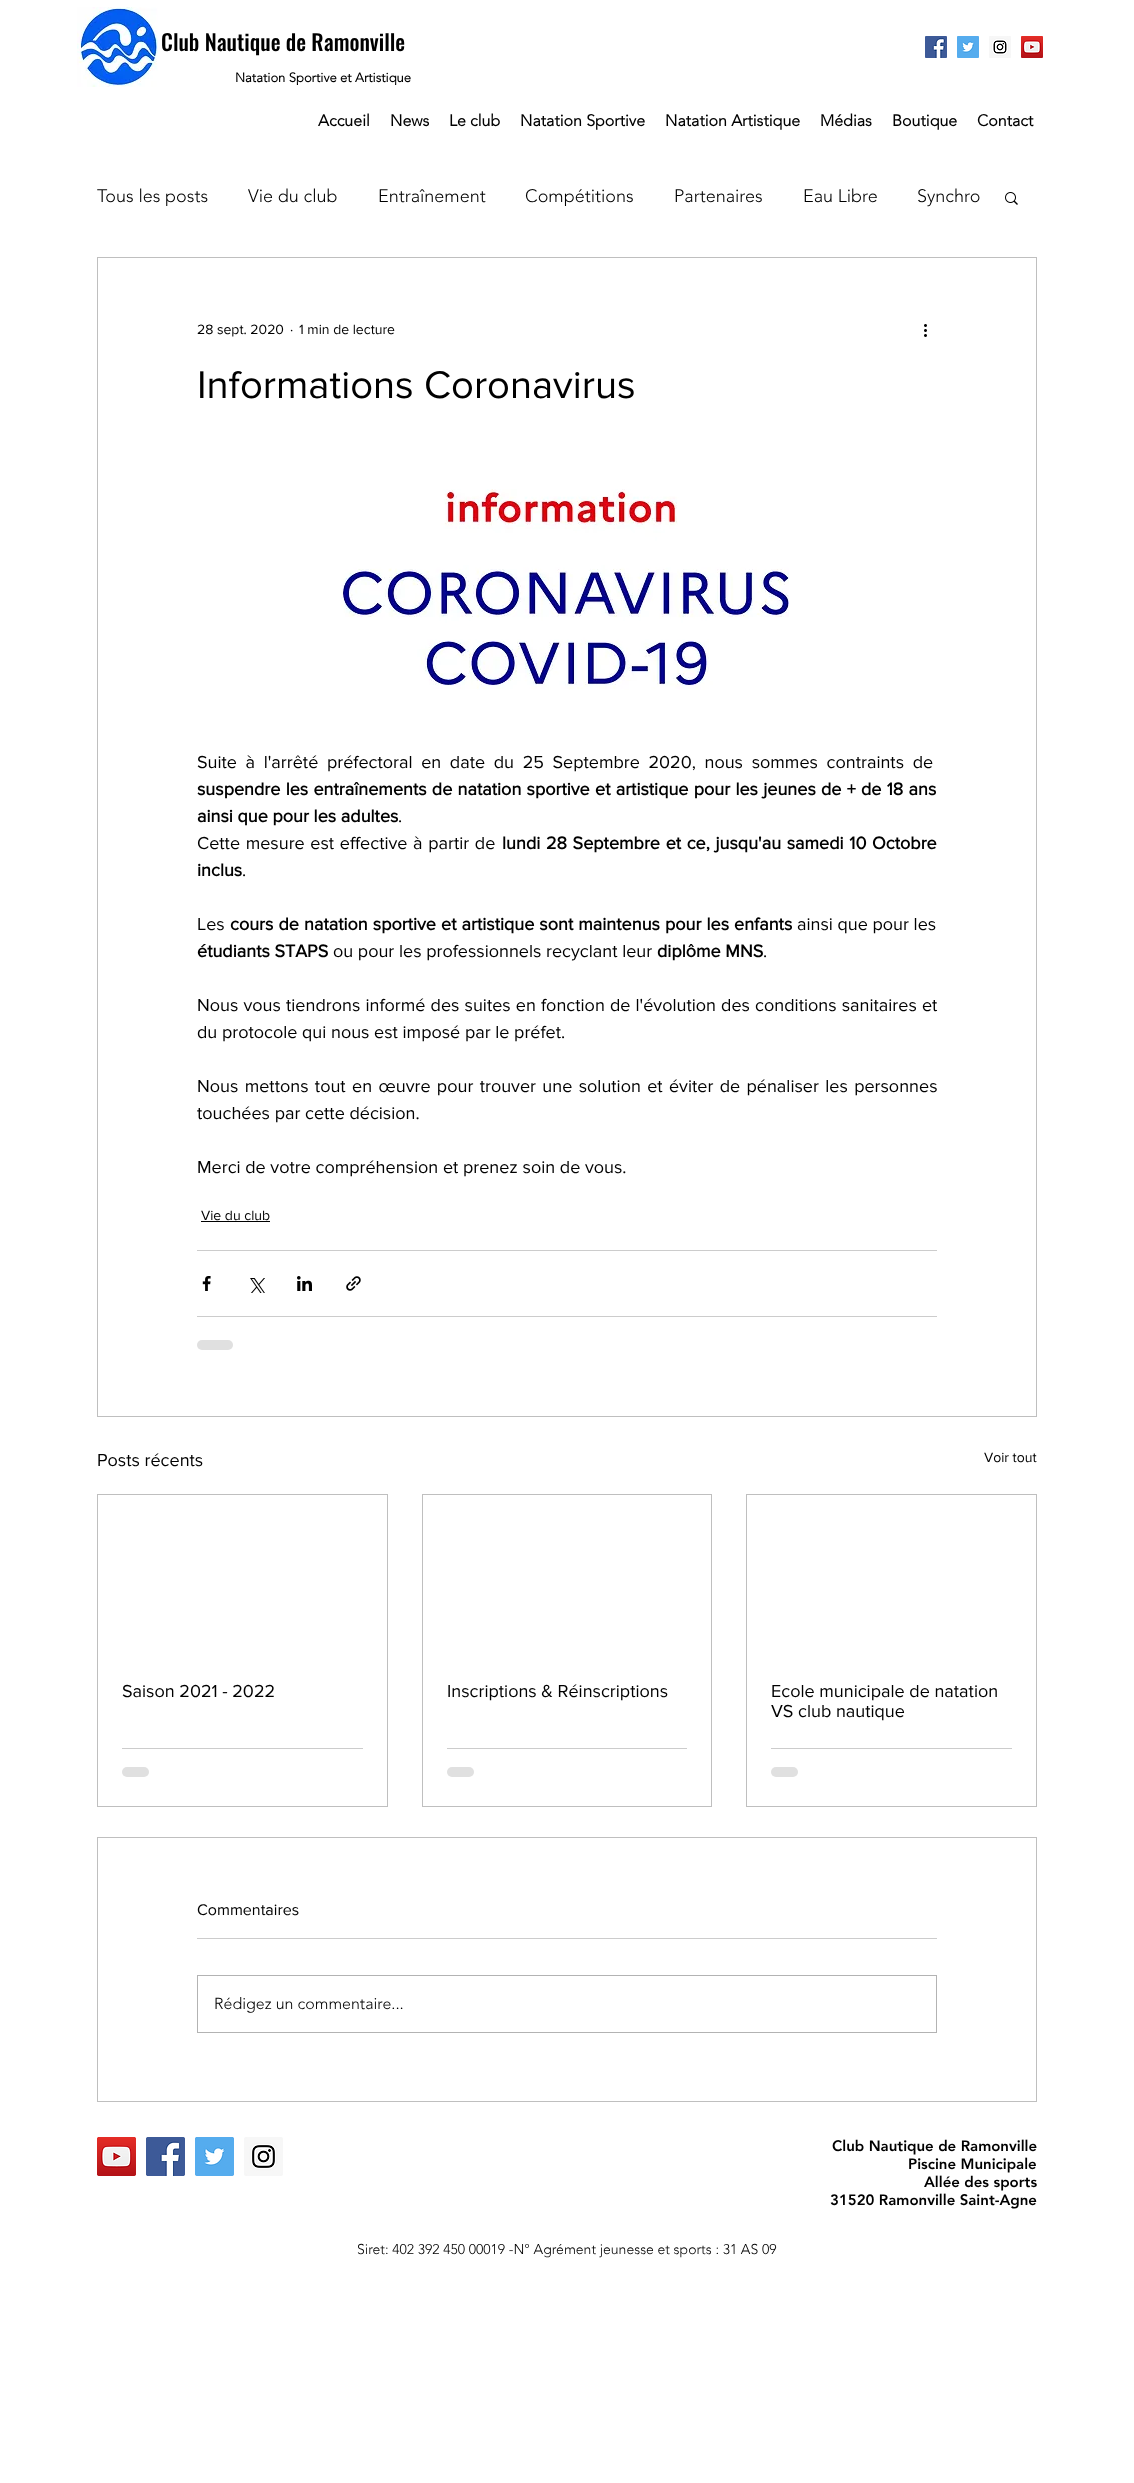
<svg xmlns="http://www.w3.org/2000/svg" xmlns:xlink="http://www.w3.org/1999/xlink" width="1134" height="2483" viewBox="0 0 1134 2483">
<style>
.cls-1{font:500 22px Oswald;fill:#000000}
.cls-2{font:bold 13px 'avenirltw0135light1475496';fill:#000000}
.cls-3{font:bold 16px 'avenirltw0135light1475496';fill:#000000}
.cls-4{font:300 18px 'avenirltw0135light1475496';fill:#000000}
.cls-5{font:14px 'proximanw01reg';fill:#000000}
.cls-6{font:40px 'proximanw01reg';fill:#000000}
.cls-7{font:18px 'proximanw01reg';fill:#000000}
.cls-8{font:bold 18px 'proximanw01reg';fill:#000000}
.cls-9{font:16px 'proximanw01reg';fill:#000000}
.cls-10{font:300 16px 'avenirltw0135light1475496';fill:#000000}
.cls-11{font:900 15px 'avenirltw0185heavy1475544';fill:#000000}
.cls-12{font:300 14px 'avenirltw0135light1475496';fill:#000000}
</style>
<rect width="100%" height="100%" fill="#ffffff"/>
<image xlink:href="image0.png" x="77" y="7" width="81" height="80"/>
<image xlink:href="image1.png" x="925" y="36" width="22" height="22"/>
<image xlink:href="image2.png" x="957" y="36" width="22" height="22"/>
<image xlink:href="image3.png" x="989" y="36" width="22" height="22"/>
<image xlink:href="image4.png" x="1021" y="36" width="22" height="22"/>
<image xlink:href="image5.png" x="1005" y="192" width="13" height="13"/>
<rect fill="none" stroke="#bfbfbf" x="97.5" y="257.5" width="939" height="1159"/>
<image xlink:href="image6.png" x="924" y="324" width="3" height="13"/>
<image xlink:href="image7.png" x="341" y="489" width="448" height="201"/>
<rect fill="#000000" x="201" y="1221" width="69" height="1"/>
<rect fill="#cccccc" x="197" y="1250" width="740" height="1"/>
<image xlink:href="image8.png" x="202" y="1276" width="9" height="15"/>
<image xlink:href="image9.png" x="250" y="1278" width="15" height="15"/>
<image xlink:href="image10.png" x="297" y="1276" width="15" height="15"/>
<image xlink:href="image11.png" x="346" y="1276" width="15" height="15"/>
<rect fill="#cccccc" x="197" y="1316" width="740" height="1"/>
<rect fill="#e0e0e0" x="197" y="1340" width="36" height="10" rx="5"/>
<rect fill="none" stroke="#bfbfbf" x="97.5" y="1494.5" width="290" height="312"/>
<rect fill="#cccccc" x="122" y="1748" width="241" height="1"/>
<rect fill="#e0e0e0" x="122" y="1767" width="27" height="10" rx="5"/>
<rect fill="none" stroke="#bfbfbf" x="422.5" y="1494.5" width="289" height="312"/>
<rect fill="#cccccc" x="447" y="1748" width="240" height="1"/>
<rect fill="#e0e0e0" x="447" y="1767" width="27" height="10" rx="5"/>
<rect fill="none" stroke="#bfbfbf" x="746.5" y="1494.5" width="290" height="312"/>
<rect fill="#cccccc" x="771" y="1748" width="241" height="1"/>
<rect fill="#e0e0e0" x="771" y="1767" width="27" height="10" rx="5"/>
<rect fill="none" stroke="#bfbfbf" x="97.5" y="1837.5" width="939" height="264"/>
<rect fill="#cccccc" x="197" y="1938" width="740" height="1"/>
<rect fill="none" stroke="#b3b3b3" x="197.5" y="1975.5" width="739" height="57"/>
<image xlink:href="image12.png" x="97" y="2137" width="39" height="39"/>
<image xlink:href="image13.png" x="146" y="2137" width="39" height="39"/>
<image xlink:href="image14.png" x="195" y="2137" width="39" height="39"/>
<image xlink:href="image15.png" x="244" y="2137" width="39" height="39"/>
<text class="cls-1" x="161" y="51">Club Nautique de Ramonville</text>
<text class="cls-2" x="235" y="82">Natation Sportive et Artistique</text>
<text class="cls-3" x="318" y="126">Accueil</text>
<text class="cls-3" x="390" y="126">News</text>
<text class="cls-3" x="449" y="126">Le club</text>
<text class="cls-3" x="520" y="126">Natation Sportive</text>
<text class="cls-3" x="665" y="126">Natation Artistique</text>
<text class="cls-3" x="820" y="126">Médias</text>
<text class="cls-3" x="892" y="126">Boutique</text>
<text class="cls-3" x="977" y="126">Contact</text>
<text class="cls-4" x="97" y="202">Tous les posts</text>
<text class="cls-4" x="248" y="202">Vie du club</text>
<text class="cls-4" x="378" y="202">Entraînement</text>
<text class="cls-4" x="525" y="202">Compétitions</text>
<text class="cls-4" x="674" y="202">Partenaires</text>
<text class="cls-4" x="803" y="202">Eau Libre</text>
<text class="cls-4" x="917" y="202">Synchro</text>
<text class="cls-5" x="197" y="334">28 sept. 2020</text>
<text class="cls-5" x="290" y="334">·</text>
<text class="cls-5" x="299" y="334">1 min de lecture</text>
<text class="cls-6" x="197" y="398">Informations Coronavirus</text>
<text class="cls-7" x="197" y="768" word-spacing="4">Suite à l'arrêté préfectoral en date du 25 Septembre 2020, nous sommes contraints de</text>
<text class="cls-8"><tspan x="197" y="795" word-spacing="0.6">suspendre les entraînements de natation sportive et artistique pour les jeunes de + de 18 ans</tspan><tspan x="197" y="822">ainsi que pour les adultes</tspan></text>
<text class="cls-7" x="398" y="822">.</text>
<text class="cls-7" x="197" y="849" word-spacing="1">Cette mesure est effective à partir de</text>
<text class="cls-8" x="502" y="849" word-spacing="1">lundi 28 Septembre et ce, jusqu'au samedi 10 Octobre</text>
<text class="cls-8" x="197" y="876">inclus</text>
<text class="cls-7" x="242" y="876">.</text>
<text class="cls-7" x="197" y="930">Les</text>
<text class="cls-8" x="230" y="930" word-spacing="0.4">cours de natation sportive et artistique sont maintenus pour les enfants</text>
<text class="cls-7" x="797" y="930">ainsi que pour les</text>
<text class="cls-8" x="197" y="957">étudiants STAPS</text>
<text class="cls-7" x="333" y="957">ou pour les professionnels recyclant leur</text>
<text class="cls-8" x="657" y="957">diplôme MNS</text>
<text class="cls-7" x="763" y="957">.</text>
<text class="cls-7"><tspan x="197" y="1011" word-spacing="0.5">Nous vous tiendrons informé des suites en fonction de l'évolution des conditions sanitaires et</tspan><tspan x="197" y="1038">du protocole qui nous est imposé par le préfet.</tspan></text>
<text class="cls-7"><tspan x="197" y="1092" word-spacing="1.7">Nous mettons tout en œuvre pour trouver une solution et éviter de pénaliser les personnes</tspan><tspan x="197" y="1119">touchées par cette décision.</tspan></text>
<text class="cls-7" x="197" y="1173">Merci de votre compréhension et prenez soin de vous.</text>
<text class="cls-5" x="201" y="1220">Vie du club</text>
<text class="cls-7" x="97" y="1466">Posts récents</text>
<text class="cls-5" x="984" y="1462">Voir tout</text>
<text class="cls-7" x="122" y="1697">Saison 2021 - 2022</text>
<text class="cls-7" x="447" y="1697">Inscriptions &amp; Réinscriptions</text>
<text class="cls-7"><tspan x="771" y="1697">Ecole municipale de natation</tspan><tspan x="771" y="1717">VS club nautique</tspan></text>
<text class="cls-9" x="197" y="1915">Commentaires</text>
<text class="cls-10" x="214" y="2009">Rédigez un commentaire...</text>
<text class="cls-11" x="832" y="2151">Club Nautique de Ramonville</text>
<text class="cls-11" x="908" y="2169">Piscine Municipale</text>
<text class="cls-11" x="924" y="2187">Allée des sports</text>
<text class="cls-11" x="830" y="2205">31520 Ramonville Saint-Agne</text>
<text class="cls-12" x="357" y="2254">Siret: 402 392 450 00019 -N° Agrément jeunesse et sports : 31 AS 09</text>
</svg>
